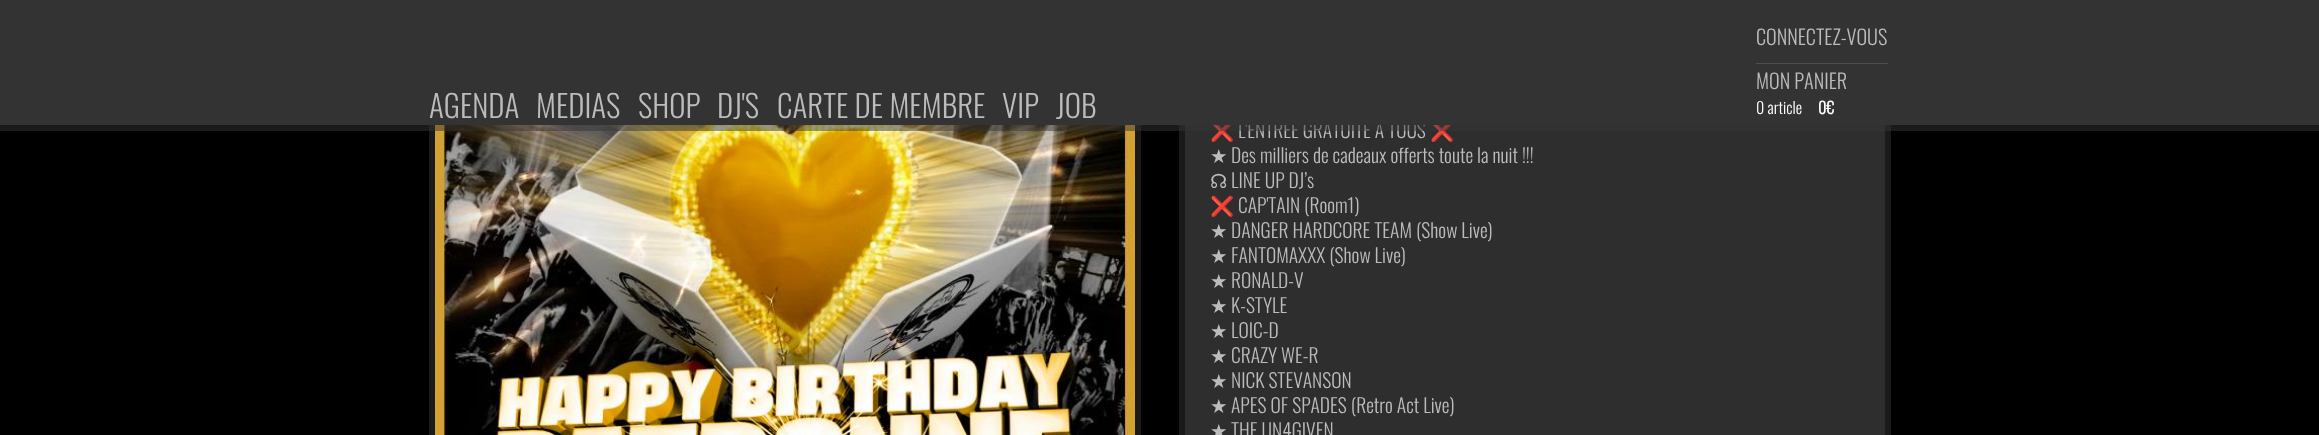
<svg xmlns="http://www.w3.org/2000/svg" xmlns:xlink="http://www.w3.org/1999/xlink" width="2319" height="435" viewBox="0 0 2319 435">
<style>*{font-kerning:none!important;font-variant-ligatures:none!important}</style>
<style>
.cls-1{font:19.5px Noto Color Emoji;fill:#bcbcbc}
.cls-2{font:300 19.5px Oswald;fill:#bcbcbc}
.cls-3{font:300 31px Oswald;fill:#bcbcbc}
.cls-4{font:bold 16px Oswald;fill:#ffffff}
.cls-5{font:300 16px Oswald;fill:#ffffff}
.cls-6{font:300 20.25px Oswald;fill:#bcbcbc}
.cls-7{font:19.5px DejaVu Sans;fill:#bcbcbc}
</style>
<rect width="100%" height="100%" fill="#000000"/>
<rect fill="none" stroke="#1a1a1a" stroke-width="6" x="432" y="-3" width="706" height="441"/>
<image xlink:href="image0.png" x="435" y="125" width="700" height="310"/>
<rect fill="#2e2e2e" x="1185" y="125" width="700" height="310"/>
<rect fill="none" stroke="#1a1a1a" stroke-width="6" x="1182" y="-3" width="706" height="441"/>
<text class="cls-1" x="1210" y="138">❌</text>
<text class="cls-2" x="1238" y="138">L'ENTRÉE GRATUITE À TOUS</text>
<text class="cls-1" x="1430" y="138">❌</text>
<rect fill="#333333" x="0" y="0" width="2319" height="125"/>
<text class="cls-3" x="1056" y="118">JOB</text>
<text class="cls-3" x="1002" y="118">VIP</text>
<text class="cls-3" x="777" y="118">CARTE DE MEMBRE</text>
<text class="cls-3" x="717" y="118">DJ'S</text>
<text class="cls-3" x="638" y="118">SHOP</text>
<text class="cls-3" x="536" y="118">MEDIAS</text>
<text class="cls-3" x="429" y="118">AGENDA</text>
<text class="cls-4" x="1818" y="114">0€</text>
<text class="cls-5" x="1756" y="114">0 article</text>
<text class="cls-6" x="1756" y="89">MON PANIER</text>
<text class="cls-6" x="1756" y="45">CONNECTEZ-VOUS</text>
<rect fill="#4d4d4d" x="1756" y="63" width="132" height="1"/>
<rect fill="#333333" fill-opacity="0.5" x="0" y="125" width="2319" height="6"/>
<text class="cls-7" x="1210" y="163">★</text>
<text class="cls-2" x="1231" y="163">Des milliers de cadeaux offerts toute la nuit !!!</text>
<text class="cls-7" x="1210" y="188">☊</text>
<text class="cls-2" x="1231" y="188">LINE UP DJ’s</text>
<text class="cls-1" x="1210" y="213">❌</text>
<text class="cls-2" x="1238" y="213">CAP'TAIN (Room1)</text>
<text class="cls-7" x="1210" y="238">★</text>
<text class="cls-2" x="1231" y="238">DANGER HARDCORE TEAM (Show Live)</text>
<text class="cls-7" x="1210" y="263">★</text>
<text class="cls-2" x="1231" y="263">FANTOMAXXX (Show Live)</text>
<text class="cls-7" x="1210" y="288">★</text>
<text class="cls-2" x="1231" y="288">RONALD-V</text>
<text class="cls-7" x="1210" y="313">★</text>
<text class="cls-2" x="1231" y="313">K-STYLE</text>
<text class="cls-7" x="1210" y="338">★</text>
<text class="cls-2" x="1231" y="338">LOIC-D</text>
<text class="cls-7" x="1210" y="363">★</text>
<text class="cls-2" x="1231" y="363">CRAZY WE-R</text>
<text class="cls-7" x="1210" y="388">★</text>
<text class="cls-2" x="1231" y="388">NICK STEVANSON</text>
<text class="cls-7" x="1210" y="413">★</text>
<text class="cls-2" x="1231" y="413">APES OF SPADES (Retro Act Live)</text>
<text class="cls-7" x="1210" y="438">★</text>
<text class="cls-2" x="1231" y="438">THE UN4GIVEN</text>
</svg>
